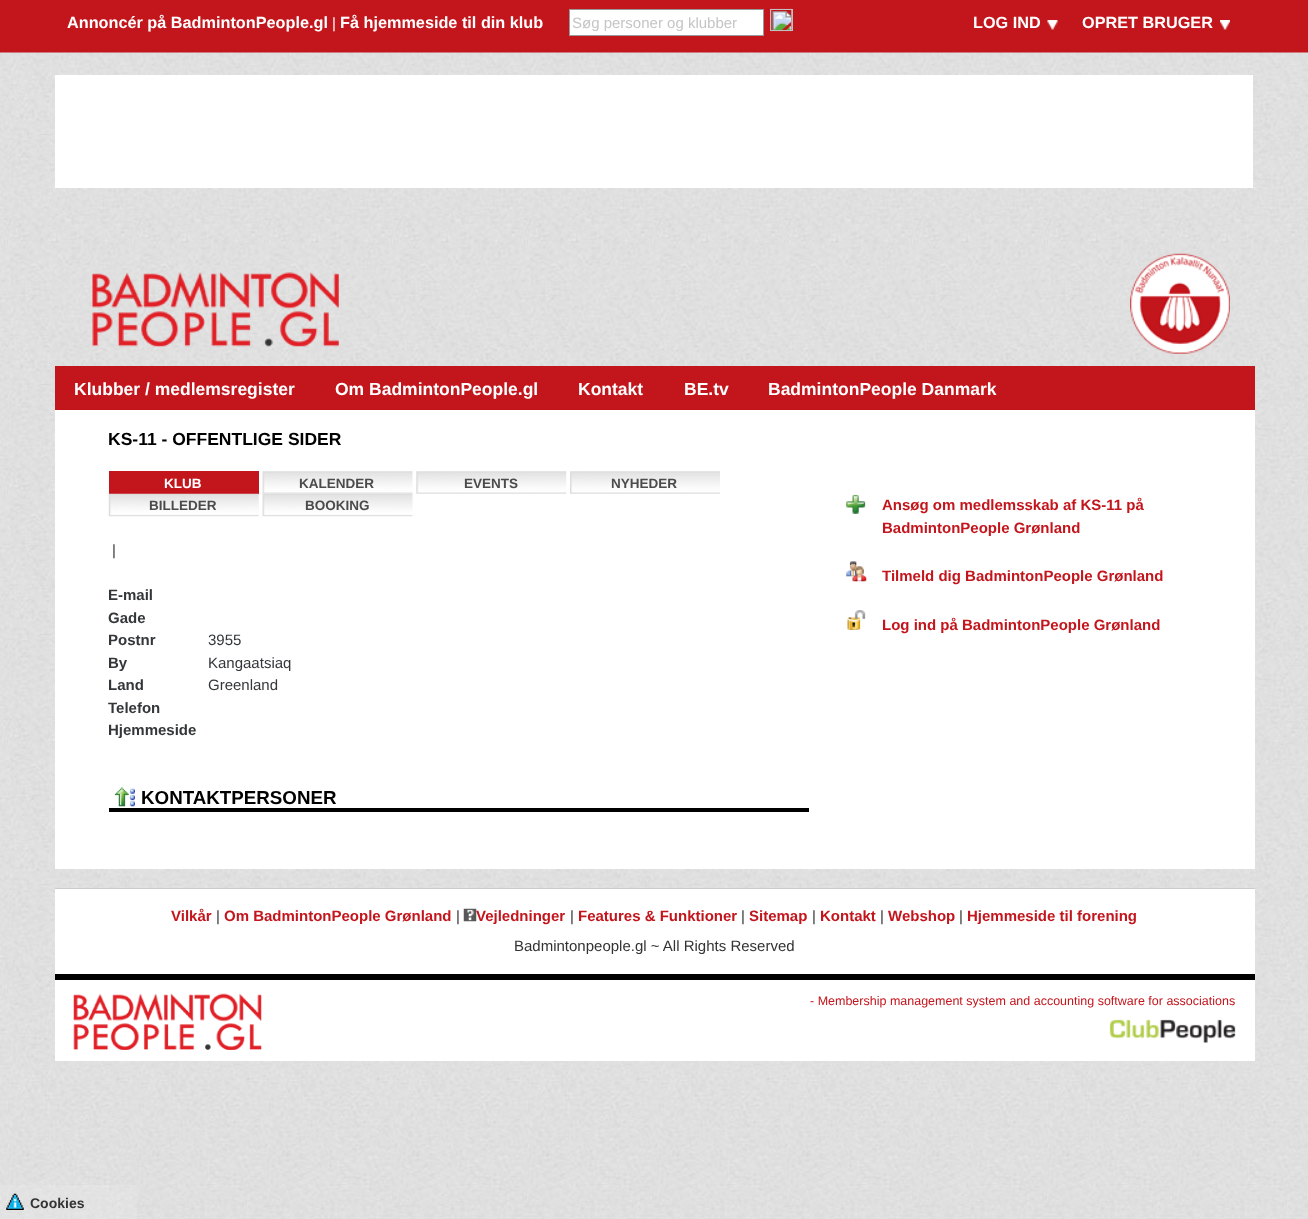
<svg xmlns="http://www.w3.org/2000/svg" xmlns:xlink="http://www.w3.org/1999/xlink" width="1308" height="1219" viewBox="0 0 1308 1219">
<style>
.cls-1{font:bold 16.25px Liberation Sans;fill:#ffffff}
.cls-2{font:15px Liberation Sans;fill:#ffffff}
.cls-3{font:15px Liberation Sans;fill:#c5c5c5}
.cls-4{font:bold 17.5px Liberation Sans;fill:#ffffff}
.cls-5{font:bold 17.5px Liberation Sans;fill:#000000}
.cls-6{font:bold 13.5px Liberation Sans;fill:#ffffff}
.cls-7{font:bold 13.5px Liberation Sans;fill:#4b4b4b}
.cls-8{font:15px Liberation Sans;fill:#333739}
.cls-9{font:bold 15px Liberation Sans;fill:#333739}
.cls-10{font:bold 18.75px Liberation Sans;fill:#000000}
.cls-11{font:bold 15px Liberation Sans;fill:#c3151c}
.cls-12{font:15px Liberation Sans;fill:#333333}
.cls-13{font:bold 14px Liberation Sans;fill:#333333}
.cls-14{font:12.5px Liberation Sans;fill:#c3151c}
</style>
<defs>
<clipPath id="clip1"><rect x="573" y="14" width="187" height="17"/></clipPath>
</defs>
<rect width="100%" height="100%" fill="#ffffff"/>
<image xlink:href="image0.png" x="0" y="0" width="1308" height="1219"/>
<rect fill="#ffffff" stroke="#999999" x="569.5" y="9.5" width="194" height="26"/>
<image xlink:href="image1.png" x="770" y="8" width="22" height="24"/>
<rect fill="none" stroke="#c0c0c0" x="770.5" y="9.5" width="22" height="21"/>
<image xlink:href="image2.png" x="1047" y="20" width="11" height="10"/>
<image xlink:href="image3.png" x="1220" y="20" width="10" height="10"/>
<rect fill="#c3151c" x="55" y="366" width="1200" height="44"/>
<image xlink:href="image4.png" x="92" y="272" width="247" height="75"/>
<image xlink:href="image5.png" x="1130" y="253" width="100" height="101"/>
<rect fill="#ffffff" x="55" y="75" width="1198" height="113"/>
<rect fill="#ffffff" x="55" y="410" width="1200" height="459"/>
<rect fill="#c3151c" x="109" y="471" width="150" height="23"/>
<image xlink:href="image6.png" x="262" y="471" width="151" height="23"/>
<image xlink:href="image7.png" x="416" y="471" width="151" height="23"/>
<image xlink:href="image8.png" x="570" y="471" width="150" height="23"/>
<image xlink:href="image9.png" x="108" y="493" width="151" height="24"/>
<image xlink:href="image10.png" x="262" y="494" width="151" height="23"/>
<rect fill="#000000" x="109" y="808" width="700" height="4"/>
<image xlink:href="image11.png" x="115" y="787" width="20" height="20"/>
<image xlink:href="image12.png" x="846" y="494" width="20" height="20"/>
<image xlink:href="image13.png" x="846" y="561" width="21" height="21"/>
<image xlink:href="image14.png" x="847" y="610" width="19" height="20"/>
<rect fill="#ffffff" x="55" y="889" width="1200" height="85"/>
<rect fill="#cccccc" x="55" y="888" width="1200" height="1"/>
<image xlink:href="image15.png" x="463" y="908" width="14" height="14"/>
<rect fill="#ffffff" fill-opacity="0.12" x="0" y="1185" width="137" height="34"/>
<image xlink:href="image16.png" x="6" y="1193" width="18" height="17"/>
<rect fill="#000000" x="55" y="974" width="1200" height="6"/>
<rect fill="#ffffff" x="55" y="980" width="1200" height="81"/>
<image xlink:href="image17.png" x="73" y="993" width="189" height="57"/>
<image xlink:href="image18.png" x="1109" y="1019" width="127" height="24"/>
<text class="cls-1" x="67" y="28">Annoncér på BadmintonPeople.gl</text>
<text class="cls-2" x="332" y="28">|</text>
<text class="cls-1" x="340" y="28">Få hjemmeside til din klub</text>
<g clip-path="url(#clip1)">
<text class="cls-3" x="572" y="28">Søg personer og klubber</text>
</g>
<text class="cls-1" x="973" y="28">LOG IND</text>
<text class="cls-1" x="1082" y="28">OPRET BRUGER</text>
<text class="cls-4" x="74" y="395">Klubber / medlemsregister</text>
<text class="cls-4" x="335" y="395">Om BadmintonPeople.gl</text>
<text class="cls-4" x="578" y="395">Kontakt</text>
<text class="cls-4" x="684" y="395">BE.tv</text>
<text class="cls-4" x="768" y="395">BadmintonPeople Danmark</text>
<text class="cls-5" x="108" y="445">KS-11 - OFFENTLIGE SIDER</text>
<text class="cls-6" x="164" y="488">KLUB</text>
<text class="cls-7" x="299" y="488">KALENDER</text>
<text class="cls-7" x="464" y="488">EVENTS</text>
<text class="cls-7" x="611" y="488">NYHEDER</text>
<text class="cls-7" x="149" y="510">BILLEDER</text>
<text class="cls-7" x="305" y="510">BOOKING</text>
<text class="cls-8" x="112" y="555">|</text>
<text class="cls-9"><tspan x="108" y="600">E-mail</tspan><tspan x="108" y="623">Gade</tspan><tspan x="108" y="645">Postnr</tspan></text>
<text class="cls-8" x="208" y="645">3955</text>
<text class="cls-9" x="108" y="668">By</text>
<text class="cls-8" x="208" y="668">Kangaatsiaq</text>
<text class="cls-9" x="108" y="690">Land</text>
<text class="cls-8" x="208" y="690">Greenland</text>
<text class="cls-9"><tspan x="108" y="713">Telefon</tspan><tspan x="108" y="735">Hjemmeside</tspan></text>
<text class="cls-10" x="141" y="804">KONTAKTPERSONER</text>
<text class="cls-11"><tspan x="882" y="510">Ansøg om medlemsskab af KS-11 på</tspan><tspan x="882" y="533">BadmintonPeople Grønland</tspan></text>
<text class="cls-11" x="882" y="581">Tilmeld dig BadmintonPeople Grønland</text>
<text class="cls-11" x="882" y="630">Log ind på BadmintonPeople Grønland</text>
<text class="cls-11" x="171" y="921">Vilkår</text>
<text class="cls-12" x="216" y="921">|</text>
<text class="cls-11" x="224" y="921">Om BadmintonPeople Grønland</text>
<text class="cls-12" x="456" y="921">|</text>
<text class="cls-11" x="476" y="921">Vejledninger</text>
<text class="cls-12" x="570" y="921">|</text>
<text class="cls-11" x="578" y="921">Features &amp; Funktioner</text>
<text class="cls-12" x="741" y="921">|</text>
<text class="cls-11" x="749" y="921">Sitemap</text>
<text class="cls-12" x="812" y="921">|</text>
<text class="cls-11" x="820" y="921">Kontakt</text>
<text class="cls-12" x="880" y="921">|</text>
<text class="cls-11" x="888" y="921">Webshop</text>
<text class="cls-12" x="959" y="921">|</text>
<text class="cls-11" x="967" y="921">Hjemmeside til forening</text>
<text class="cls-12" x="514" y="951">Badmintonpeople.gl ~ All Rights Reserved</text>
<text class="cls-13" x="30" y="1208">Cookies</text>
<text class="cls-14" x="810" y="1005">- Membership management system and accounting software for associations</text>
</svg>
